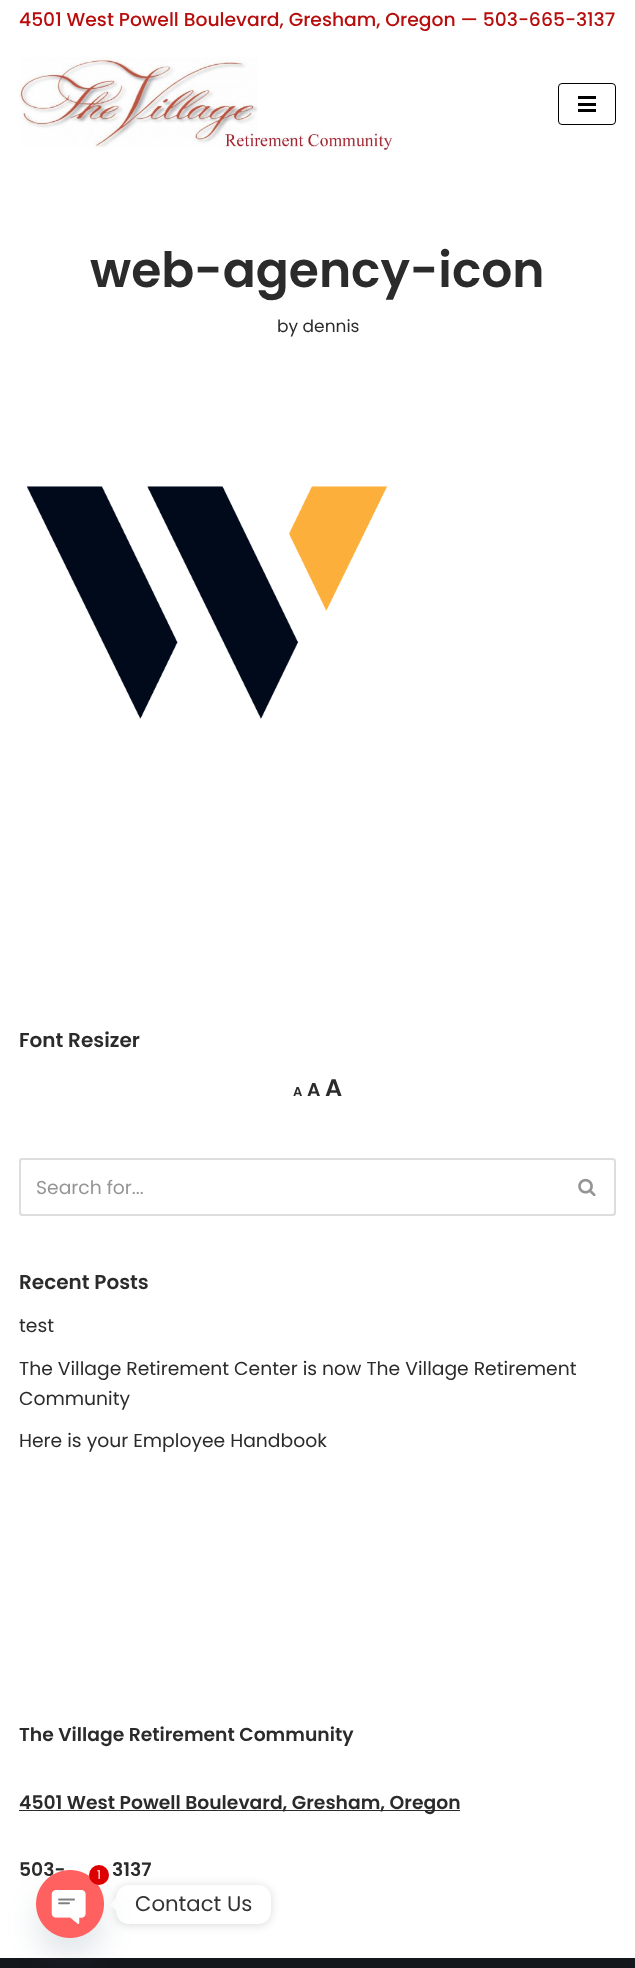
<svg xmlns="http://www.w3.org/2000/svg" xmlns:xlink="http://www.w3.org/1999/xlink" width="635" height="1968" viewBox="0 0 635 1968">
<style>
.cls-1{font:500 18.75px Poppins;fill:#b80d0d}
.cls-2{font:600 48.75px Poppins;fill:#2b2b2b}
.cls-3{font:17px Poppins;fill:#2b2b2b}
.cls-4{font:600 20px Poppins;fill:#2b2b2b}
.cls-5{font:600 13px Poppins;fill:#2b2b2b}
.cls-6{font:600 18.75px Poppins;fill:#2b2b2b}
.cls-7{font:600 24px Poppins;fill:#2b2b2b}
.cls-8{font:18.75px Poppins;fill:#959595}
.cls-9{font:18.75px Poppins;fill:#2b2b2b}
.cls-10{font:12px Poppins;fill:#ffffff}
.cls-11{font:21.25px Poppins;fill:#333333}
</style>
<rect width="100%" height="100%" fill="#ffffff"/>
<image xlink:href="image0.png" x="19" y="57" width="374" height="93"/>
<rect fill="none" stroke="#000000" x="558.5" y="83.5" width="57" height="41" rx="3.5"/>
<rect fill="#000000" x="578" y="96" width="18" height="3"/>
<rect fill="#000000" x="578" y="103" width="18" height="3"/>
<rect fill="#000000" x="578" y="109" width="18" height="3"/>
<image xlink:href="image1.png" x="26" y="486" width="362" height="233"/>
<path fill="#dddddd" fill-rule="evenodd" d="M22 1158H560V1216H22C20 1216 19 1215 19 1212V1161C19 1159 20 1158 22 1158ZM22 1160H560V1214H22C22 1214 21 1213 21 1212V1161C21 1161 22 1160 22 1160Z"/>
<path fill="#dddddd" fill-rule="evenodd" d="M560 1158H612C615 1158 616 1159 616 1161V1212C616 1215 615 1216 612 1216H560ZM560 1160H612C613 1160 614 1161 614 1161V1212C614 1213 613 1214 612 1214H560Z"/>
<image xlink:href="image2.png" x="578" y="1178" width="18" height="18"/>
<rect fill="#2b2b2b" x="19" y="1810" width="441" height="1"/>
<rect fill="#14171c" x="0" y="1958" width="635" height="10"/>
<rect fill="#000000" fill-opacity="0.15" filter="blur(5px)" x="116" y="1886" width="155" height="39" rx="13"/>
<rect fill="#ffffff" x="116" y="1885" width="155" height="39" rx="13"/>
<path fill="#ffffff" d="M116 1898V1910.5L110 1904.5Z"/>
<rect fill="#49687e" fill-opacity="0.16" filter="blur(15px)" x="36" y="1890" width="68" height="68" rx="34"/>
<text class="cls-1" x="19" y="26">4501 West Powell Boulevard, Gresham, Oregon — 503-665-3137</text>
<text class="cls-2" x="90" y="287">web-agency-icon</text>
<text class="cls-3" x="277" y="332">by dennis</text>
<text class="cls-4" x="19" y="1047">Font Resizer</text>
<text class="cls-5" x="293" y="1096">A</text>
<text class="cls-6" x="307" y="1096">A</text>
<text class="cls-7" x="325" y="1096">A</text>
<text class="cls-8" x="36" y="1194">Search for...</text>
<text class="cls-4" x="19" y="1289">Recent Posts</text>
<text class="cls-9" x="19" y="1332">test</text>
<text class="cls-9"><tspan x="19" y="1375">The Village Retirement Center is now The Village Retirement</tspan><tspan x="19" y="1405">Community</tspan></text>
<text class="cls-9" x="19" y="1447">Here is your Employee Handbook</text>
<text class="cls-6" x="19" y="1741">The Village Retirement Community</text>
<text class="cls-6" x="19" y="1809">4501 West Powell Boulevard, Gresham, Oregon</text>
<text class="cls-6" x="19" y="1876">503-</text>
<text class="cls-6" x="112" y="1876">3137</text>
<image xlink:href="image3.png" x="36" y="1870" width="68" height="68"/>
<circle fill="#dd0000" cx="99" cy="1875" r="10"/>
<text class="cls-10" x="97" y="1879">1</text>
<text class="cls-11" x="135" y="1911">Contact Us</text>
</svg>
